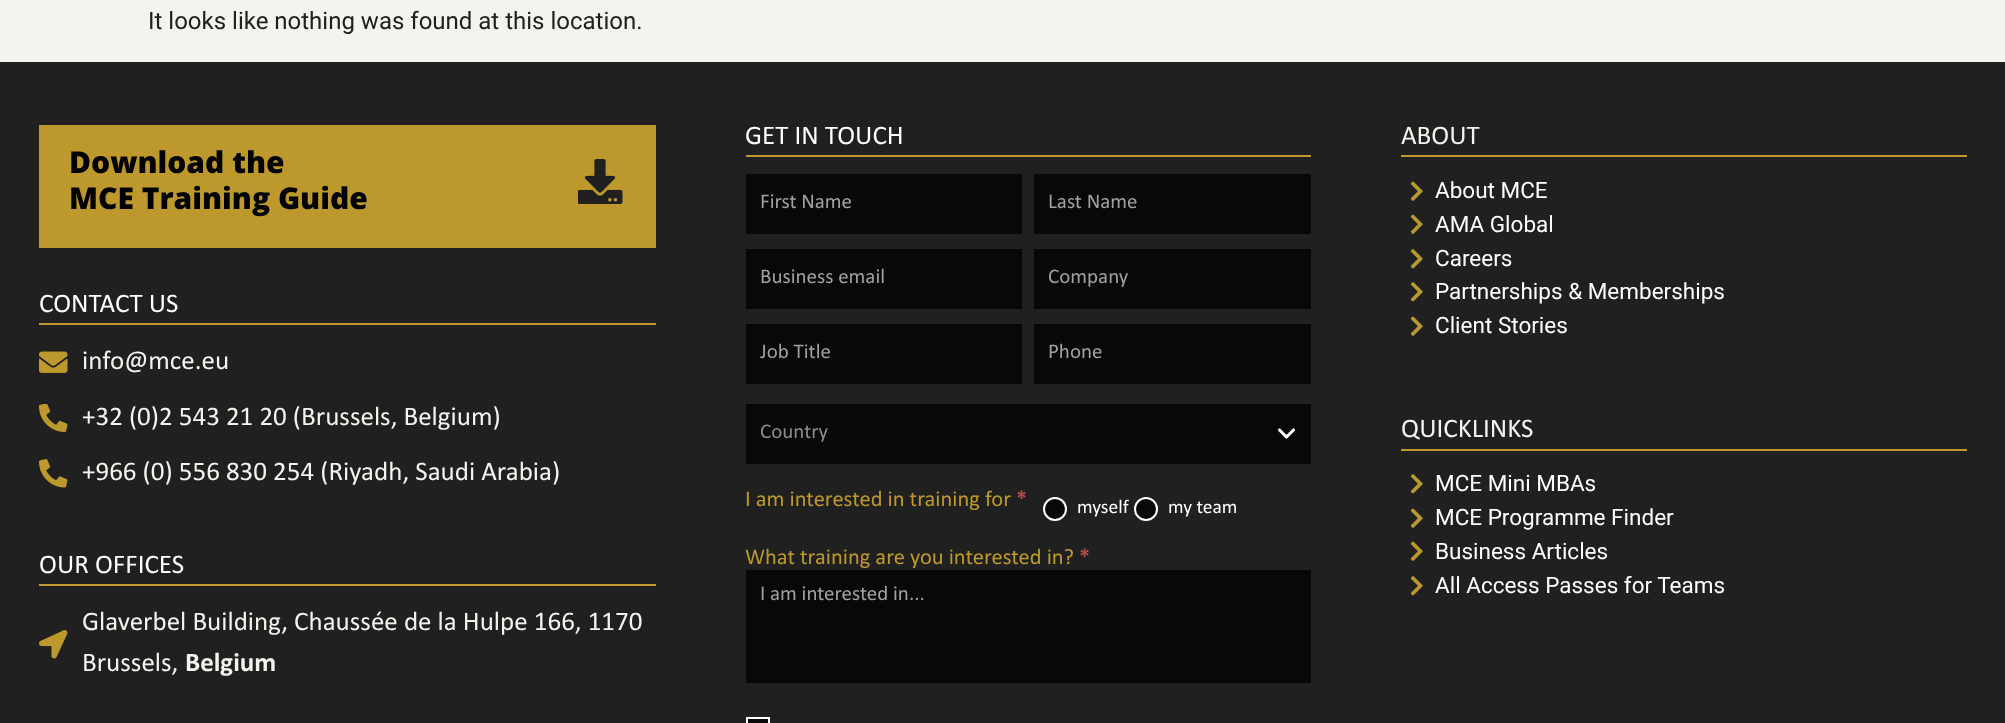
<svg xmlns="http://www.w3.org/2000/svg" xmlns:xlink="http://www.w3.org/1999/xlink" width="2005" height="723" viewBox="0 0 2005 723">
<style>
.cls-1{font:24px Roboto;fill:#202020}
.cls-2{font:800 30px Open Sans;fill:#000000}
.cls-3{font:27px Calibri;fill:#ffffff}
.cls-4{font:27px Calibri;fill:#f4f3ee}
.cls-5{font:bold 27px Calibri;fill:#f4f3ee}
.cls-6{font:21px Calibri;fill:#a1a1a1}
.cls-7{font:21px Calibri;fill:#8d8d8d}
.cls-8{font:22.5px Calibri;fill:#bc982d}
.cls-9{font:bold 22.5px Calibri;fill:#b94a48}
.cls-10{font:19.5px Calibri;fill:#ffffff}
.cls-11{font:22.5px Roboto;fill:#ffffff}
</style>
<rect width="100%" height="100%" fill="#f4f3ee"/>
<rect fill="#202020" x="0" y="62" width="2005" height="661"/>
<rect fill="#bc982d" x="39" y="125" width="617" height="123"/>
<image xlink:href="image0.png" x="578" y="159" width="45" height="45"/>
<rect fill="#bc982d" x="39" y="323" width="617" height="2"/>
<image xlink:href="image1.png" x="39" y="351" width="29" height="22"/>
<image xlink:href="image2.png" x="39" y="404" width="29" height="28"/>
<image xlink:href="image3.png" x="39" y="459" width="29" height="29"/>
<rect fill="#bc982d" x="39" y="584" width="617" height="2"/>
<image xlink:href="image4.png" x="39" y="630" width="29" height="29"/>
<rect fill="#bc982d" x="746" y="155" width="565" height="2"/>
<rect fill="#080808" x="746" y="174" width="276" height="60"/>
<rect fill="#080808" x="1034" y="174" width="277" height="60"/>
<rect fill="#080808" x="746" y="249" width="276" height="60"/>
<rect fill="#080808" x="1034" y="249" width="277" height="60"/>
<rect fill="#080808" x="746" y="324" width="276" height="60"/>
<rect fill="#080808" x="1034" y="324" width="277" height="60"/>
<rect fill="#080808" x="746" y="404" width="565" height="60"/>
<path fill="none" stroke="#ffffff" stroke-width="3.1" stroke-linecap="round" stroke-linejoin="round" d="M1279.5 430L1286.5 437L1293.5 430"/>
<circle fill="#080808" stroke="#ffffff" stroke-width="2" cx="1055" cy="509" r="11"/>
<circle fill="#080808" stroke="#ffffff" stroke-width="2" cx="1146" cy="509" r="11"/>
<rect fill="#080808" x="746" y="570" width="565" height="113"/>
<rect fill="#080808" stroke="#ffffff" stroke-width="2" x="747" y="718" width="22" height="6"/>
<rect fill="#bc982d" x="1401" y="155" width="566" height="2"/>
<image xlink:href="image5.png" x="1410" y="181" width="13" height="20"/>
<image xlink:href="image5.png" x="1410" y="214" width="13" height="20"/>
<image xlink:href="image6.png" x="1410" y="249" width="13" height="20"/>
<image xlink:href="image6.png" x="1410" y="282" width="13" height="20"/>
<image xlink:href="image5.png" x="1410" y="316" width="13" height="20"/>
<rect fill="#bc982d" x="1401" y="449" width="566" height="2"/>
<image xlink:href="image6.png" x="1410" y="474" width="13" height="20"/>
<image xlink:href="image5.png" x="1410" y="508" width="13" height="20"/>
<image xlink:href="image7.png" x="1410" y="541" width="13" height="20"/>
<image xlink:href="image8.png" x="1410" y="576" width="13" height="20"/>
<text class="cls-1" x="148" y="29">It looks like nothing was found at this location.</text>
<text class="cls-2"><tspan x="69" y="173">Download the</tspan><tspan x="69" y="209">MCE Training Guide</tspan></text>
<text class="cls-3" x="39" y="312">CONTACT US</text>
<text class="cls-4" x="82" y="369">info@mce.eu</text>
<text class="cls-4" x="82" y="425">+32 (0)2 543 21 20 (Brussels, Belgium)</text>
<text class="cls-4" x="82" y="480">+966 (0) 556 830 254 (Riyadh, Saudi Arabia)</text>
<text class="cls-3" x="39" y="573">OUR OFFICES</text>
<text class="cls-4"><tspan x="82" y="630">Glaverbel Building, Chaussée de la Hulpe 166, 1170</tspan><tspan x="82" y="671">Brussels,</tspan></text>
<text class="cls-5" x="185" y="671">Belgium</text>
<text class="cls-3" x="745" y="144">GET IN TOUCH</text>
<text class="cls-6" x="760" y="208">First Name</text>
<text class="cls-6" x="1048" y="208">Last Name</text>
<text class="cls-6" x="760" y="283">Business email</text>
<text class="cls-6" x="1048" y="283">Company</text>
<text class="cls-6" x="760" y="358">Job Title</text>
<text class="cls-6" x="1048" y="358">Phone</text>
<text class="cls-7" x="760" y="438">Country</text>
<text class="cls-8" x="745" y="506">I am interested in training for</text>
<text class="cls-9" x="1016" y="506">*</text>
<text class="cls-10" x="1077" y="513">myself</text>
<text class="cls-10" x="1168" y="513">my team</text>
<text class="cls-8" x="745" y="564">What training are you interested in?</text>
<text class="cls-9" x="1079" y="564">*</text>
<text class="cls-6" x="760" y="600">I am interested in...</text>
<text class="cls-4" x="1401" y="144">ABOUT</text>
<text class="cls-11"><tspan x="1435" y="198">About MCE</tspan><tspan x="1435" y="232">AMA Global</tspan><tspan x="1435" y="266">Careers</tspan><tspan x="1435" y="299">Partnerships &amp; Memberships</tspan><tspan x="1435" y="333">Client Stories</tspan></text>
<text class="cls-4" x="1401" y="437">QUICKLINKS</text>
<text class="cls-11"><tspan x="1435" y="491">MCE Mini MBAs</tspan><tspan x="1435" y="525">MCE Programme Finder</tspan><tspan x="1435" y="559">Business Articles</tspan><tspan x="1435" y="593">All Access Passes for Teams</tspan></text>
</svg>
